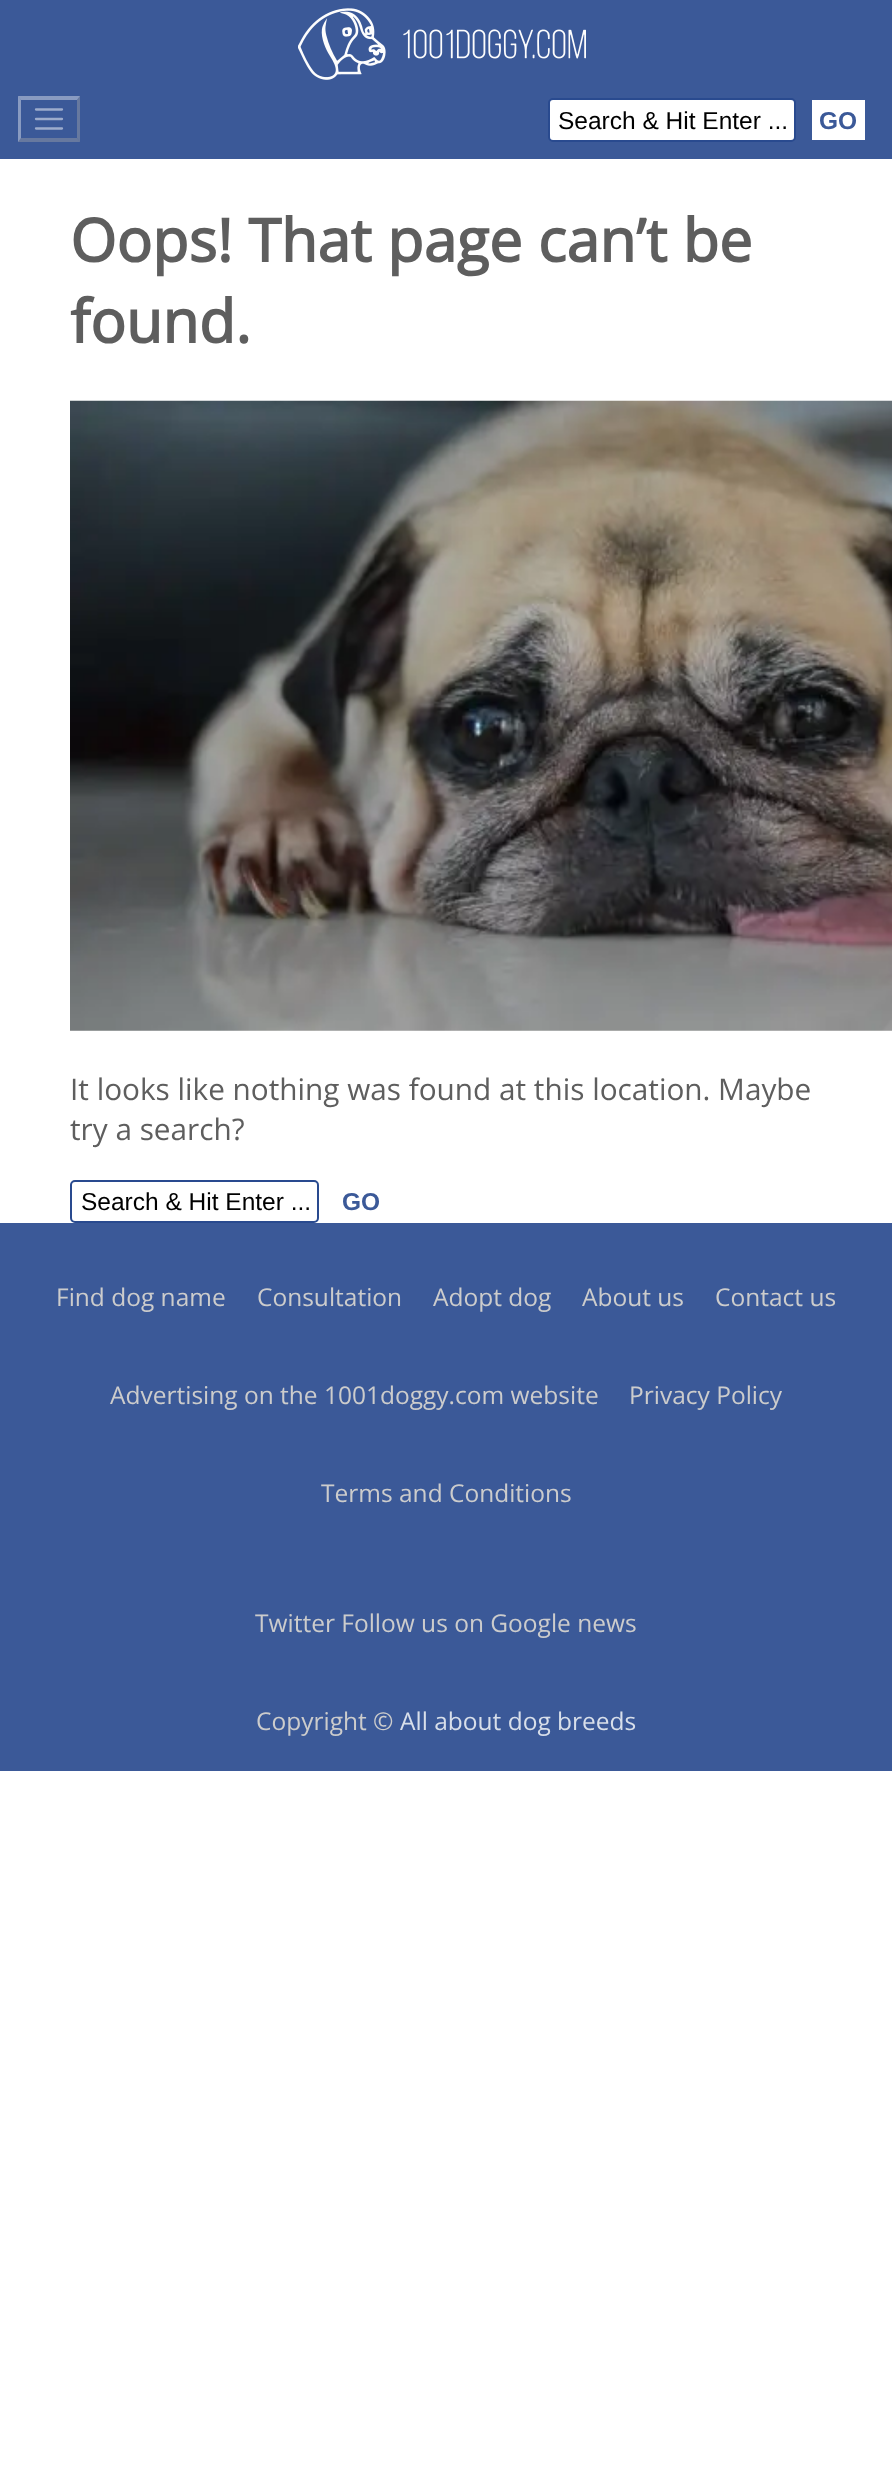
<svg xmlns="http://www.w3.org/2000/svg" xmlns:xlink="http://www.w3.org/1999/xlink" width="892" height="2485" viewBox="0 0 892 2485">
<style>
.cls-1{font:24.5px Liberation Sans;fill:#000000}
.cls-2{font:bold 24.5px Liberation Sans;fill:#3b5998}
.cls-3{font:bold 59.5px Open Sans;fill:#5e5e5e}
.cls-4{font:29.75px Open Sans;fill:#5e5e5e}
.cls-5{font:24.5px Open Sans;fill:#cccccc}
.cls-6{font:24.5px Open Sans;fill:#d8dfea}
</style>
<rect width="100%" height="100%" fill="#ffffff"/>
<rect fill="#3b5998" x="0" y="0" width="892" height="159"/>
<image xlink:href="image0.png" x="298" y="8" width="288" height="72"/>
<path fill="#899bc1" d="M18 96H80L77 100H21Z"/>
<path fill="#aaaaaa" fill-opacity="0.4" d="M80 96V142L77 138V100Z"/>
<path fill="#aaaaaa" fill-opacity="0.4" d="M80 142H18L21 138H77Z"/>
<path fill="#ffffff" fill-opacity="0.4" d="M18 142V96L21 100V138Z"/>
<path fill="none" stroke="#9daccc" stroke-width="2.3" stroke-linecap="round" d="M36 109.5H62M36 119H62M36 128.5H62"/>
<rect fill="#ffffff" stroke="#294a8f" stroke-width="2" x="549" y="99" width="246" height="42" rx="4"/>
<rect fill="#ffffff" x="812" y="100" width="53" height="40"/>
<image xlink:href="image1.png" x="70" y="400" width="822" height="631"/>
<rect fill="none" stroke="#294a8f" stroke-width="2" x="71" y="1181" width="247" height="41" rx="4"/>
<rect fill="#3b5998" x="0" y="1223" width="892" height="548"/>
<text class="cls-1" x="558" y="129">Search &amp; Hit Enter ...</text>
<text class="cls-2" x="819" y="129">GO</text>
<text class="cls-3"><tspan x="70" y="262">Oops! That page can’t be</tspan><tspan x="70" y="343">found.</tspan></text>
<text class="cls-4"><tspan x="70" y="1100">It looks like nothing was found at this location. Maybe</tspan><tspan x="70" y="1140">try a search?</tspan></text>
<text class="cls-1" x="81" y="1210">Search &amp; Hit Enter ...</text>
<text class="cls-2" x="342" y="1210">GO</text>
<text class="cls-5" x="56" y="1306">Find dog name</text>
<text class="cls-5" x="257" y="1306">Consultation</text>
<text class="cls-5" x="433" y="1306">Adopt dog</text>
<text class="cls-5" x="582" y="1306">About us</text>
<text class="cls-5" x="715" y="1306">Contact us</text>
<text class="cls-5" x="110" y="1404">Advertising on the 1001doggy.com website</text>
<text class="cls-5" x="629" y="1404">Privacy Policy</text>
<text class="cls-5" x="321" y="1502">Terms and Conditions</text>
<text class="cls-5" x="255" y="1632">Twitter Follow us on Google news</text>
<text class="cls-5" x="256" y="1730">Copyright ©</text>
<text class="cls-6" x="400" y="1730">All about dog breeds</text>
</svg>
